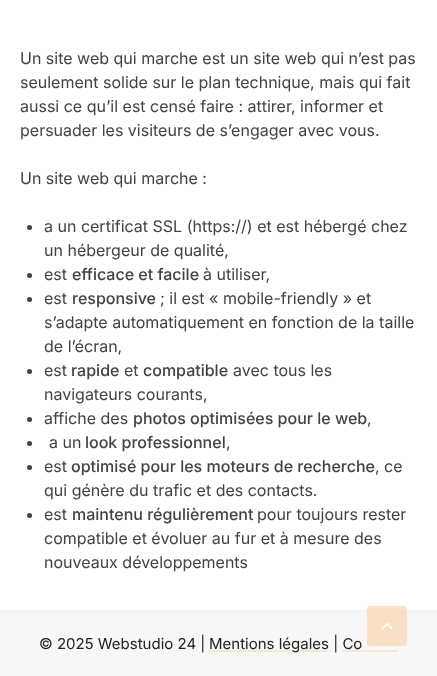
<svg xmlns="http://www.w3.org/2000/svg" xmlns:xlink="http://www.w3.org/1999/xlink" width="437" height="676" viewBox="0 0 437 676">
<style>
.cls-1{font:16px Inter;fill:#424242}
.cls-2{font:500 16px Inter;fill:#424242}
.cls-3{font:15px Inter;fill:#222222}
</style>
<rect width="100%" height="100%" fill="#ffffff"/>
<circle fill="#424242" cx="29.5" cy="227.5" r="2.5"/>
<circle fill="#424242" cx="29.5" cy="275.5" r="2.5"/>
<circle fill="#424242" cx="29.5" cy="299.5" r="2.5"/>
<circle fill="#424242" cx="29.5" cy="371.5" r="2.5"/>
<circle fill="#424242" cx="29.5" cy="419.5" r="2.5"/>
<circle fill="#424242" cx="29.5" cy="443.5" r="2.5"/>
<circle fill="#424242" cx="29.5" cy="467.5" r="2.5"/>
<circle fill="#424242" cx="29.5" cy="515.5" r="2.5"/>
<rect fill="#f5f5f5" x="0" y="610" width="437" height="3"/>
<rect fill="#f7f7f7" x="0" y="613" width="437" height="63"/>
<rect fill="#fae7d2" x="209" y="650" width="120" height="2"/>
<rect fill="#f9d6ae" fill-opacity="0.7" x="367" y="606" width="40" height="40" rx="3"/>
<image xlink:href="image0.png" x="381" y="623" width="12" height="7"/>
<text class="cls-1"><tspan x="20" y="64">Un site web qui marche est un site web qui n’est pas</tspan><tspan x="20" y="88">seulement solide sur le plan technique, mais qui fait</tspan><tspan x="20" y="112">aussi ce qu’il est censé faire : attirer, informer et</tspan><tspan x="20" y="136">persuader les visiteurs de s’engager avec vous.</tspan></text>
<text class="cls-1" x="20" y="184">Un site web qui marche :</text>
<text class="cls-1"><tspan x="44" y="232">a un certificat SSL (https://) et est hébergé chez</tspan><tspan x="44" y="256">un hébergeur de qualité,</tspan><tspan x="44" y="280">est</tspan></text>
<text class="cls-2" x="72" y="280">efficace et facile</text>
<text class="cls-1" x="203" y="280">à utiliser,</text>
<text class="cls-1" x="44" y="304">est</text>
<text class="cls-2" x="72" y="304">responsive</text>
<text class="cls-1" x="160" y="304">; il est « mobile-friendly » et</text>
<text class="cls-1"><tspan x="44" y="328">s’adapte automatiquement en fonction de la taille</tspan><tspan x="44" y="352">de l’écran,</tspan><tspan x="44" y="376">est</tspan></text>
<text class="cls-2" x="71" y="376">rapide</text>
<text class="cls-1" x="124" y="376">et</text>
<text class="cls-2" x="143" y="376">compatible</text>
<text class="cls-1" x="233" y="376">avec tous les</text>
<text class="cls-1"><tspan x="44" y="400">navigateurs courants,</tspan><tspan x="44" y="424">affiche des</tspan></text>
<text class="cls-2" x="133" y="424">photos optimisées pour le web</text>
<text class="cls-1" x="367" y="424">,</text>
<text class="cls-1" x="49" y="448">a un</text>
<text class="cls-2" x="85" y="448">look professionnel</text>
<text class="cls-1" x="226" y="448">,</text>
<text class="cls-1" x="44" y="472">est</text>
<text class="cls-2" x="71" y="472">optimisé pour les moteurs de recherche</text>
<text class="cls-1" x="375" y="472">, ce</text>
<text class="cls-1"><tspan x="44" y="496">qui génère du trafic et des contacts.</tspan><tspan x="44" y="520">est</tspan></text>
<text class="cls-2" x="72" y="520">maintenu régulièrement</text>
<text class="cls-1" x="257" y="520">pour toujours rester</text>
<text class="cls-1"><tspan x="44" y="544">compatible et évoluer au fur et à mesure des</tspan><tspan x="44" y="568">nouveaux développements</tspan></text>
<text class="cls-3" x="39" y="649">© 2025 Webstudio 24 |</text>
<text class="cls-3" x="209" y="649">Mentions légales | Co</text>
<rect fill="#fae7d2" x="343" y="650" width="55" height="2"/>
</svg>
